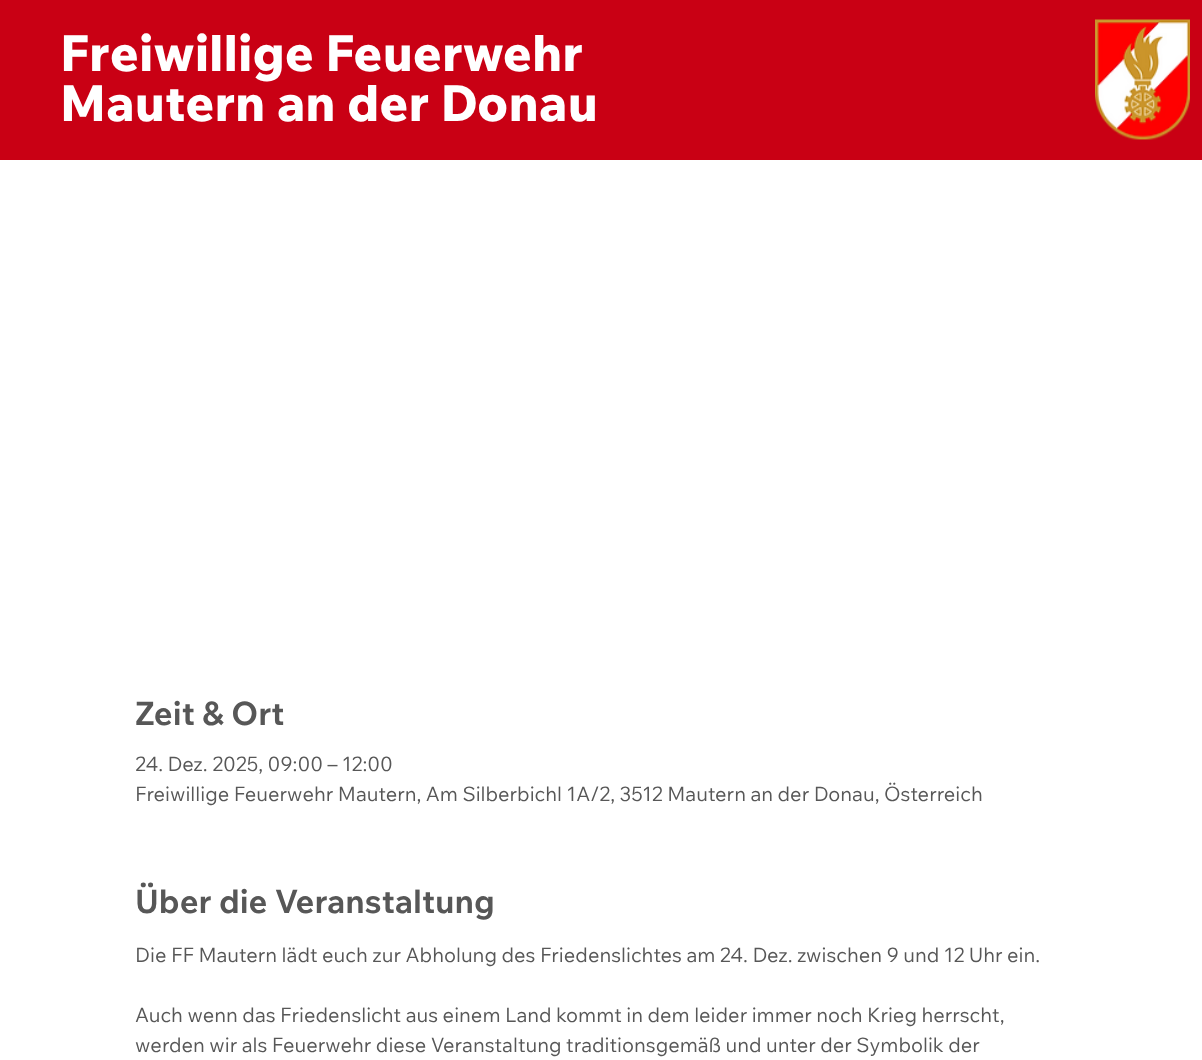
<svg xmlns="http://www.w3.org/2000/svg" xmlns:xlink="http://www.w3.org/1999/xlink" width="1202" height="1060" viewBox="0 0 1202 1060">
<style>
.cls-1{font:800 50px Wix Madefor Text;fill:#ffffff}
.cls-2{font:bold 32.5px Wix Madefor Text;fill:#575757}
.cls-3{font:20px Wix Madefor Text;fill:#575757}
</style>
<rect width="100%" height="100%" fill="#ffffff"/>
<rect fill="#c90014" x="0" y="0" width="1202" height="160"/>
<image xlink:href="image0.png" x="1095" y="19" width="95" height="121"/>
<text class="cls-1"><tspan x="60" y="71">Freiwillige Feuerwehr</tspan><tspan x="60" y="121">Mautern an der Donau</tspan></text>
<text class="cls-2" x="135" y="725">Zeit &amp; Ort</text>
<text class="cls-3"><tspan x="135" y="771">24. Dez. 2025, 09:00 – 12:00</tspan><tspan x="135" y="801">Freiwillige Feuerwehr Mautern, Am Silberbichl 1A/2, 3512 Mautern an der Donau, Österreich</tspan></text>
<text class="cls-2" x="135" y="913">Über die Veranstaltung</text>
<text class="cls-3" x="135" y="962">Die FF Mautern lädt euch zur Abholung des Friedenslichtes am 24. Dez. zwischen 9 und 12 Uhr ein.</text>
<text class="cls-3"><tspan x="135" y="1022">Auch wenn das Friedenslicht aus einem Land kommt in dem leider immer noch Krieg herrscht,</tspan><tspan x="135" y="1052">werden wir als Feuerwehr diese Veranstaltung traditionsgemäß und unter der Symbolik der</tspan></text>
</svg>
